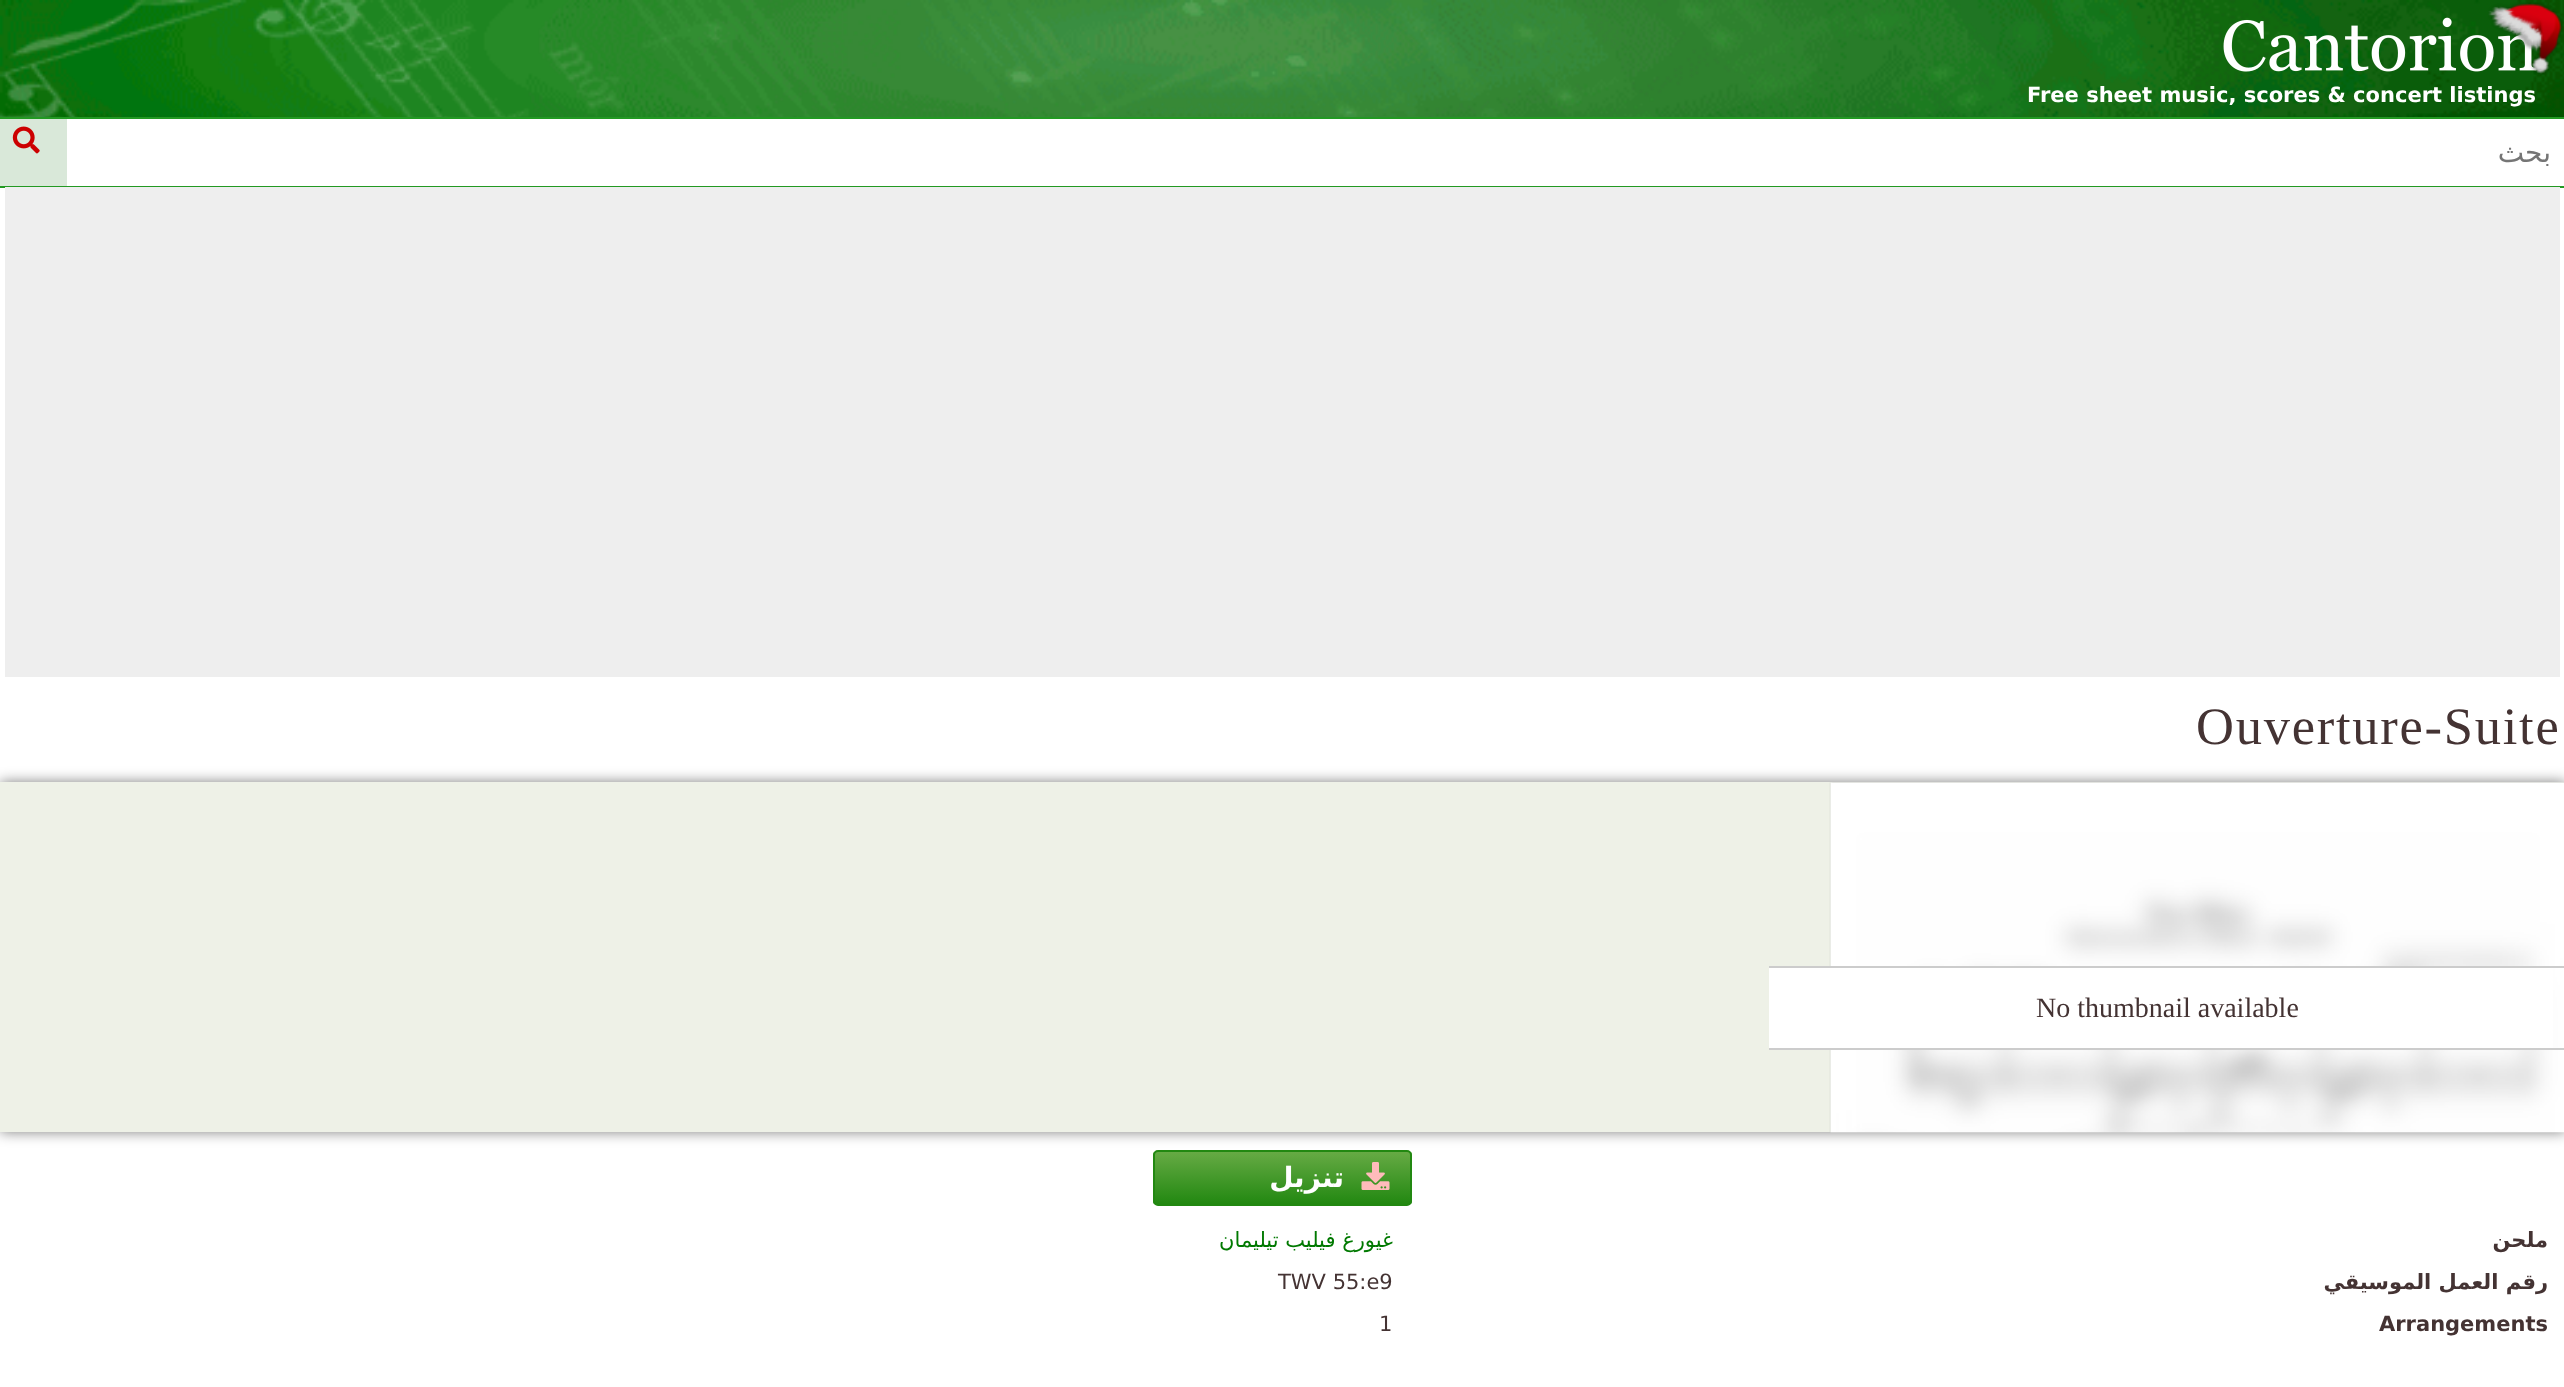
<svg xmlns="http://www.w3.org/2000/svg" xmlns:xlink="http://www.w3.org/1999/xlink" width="2564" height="1387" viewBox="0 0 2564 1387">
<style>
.cls-1{font:bold 21px DejaVu Sans;fill:#ffffff}
.cls-2{font:28px DejaVu Sans;direction:rtl;fill:#757575}
.cls-3{font:52.5px Liberation Serif;letter-spacing:1.75px;fill:#443333}
.cls-4{font:28px Liberation Serif;fill:#443333}
.cls-5{font:bold 28px DejaVu Sans;direction:rtl;fill:#ffffff}
.cls-6{font:21px DejaVu Sans;direction:rtl;fill:#007900}
.cls-7{font:bold 21px DejaVu Sans;direction:rtl;fill:#443333}
.cls-8{font:21px DejaVu Sans;fill:#443333}
.cls-9{font:bold 21px DejaVu Sans;fill:#443333}
</style>
<defs>
<clipPath id="clip1"><rect x="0" y="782" width="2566" height="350"/></clipPath>
<clipPath id="clip2"><rect x="1153" y="1150" width="259" height="56" rx="5"/></clipPath>
<linearGradient id="g1" gradientUnits="userSpaceOnUse" x1="1283" y1="1152" x2="1283" y2="1204"><stop offset="0" stop-color="#66aa44"/><stop offset="1" stop-color="#228811"/></linearGradient>
</defs>
<rect width="100%" height="100%" fill="#ffffff"/>
<image xlink:href="image0.png" x="0" y="0" width="2564" height="117"/>
<image xlink:href="image2.png" x="2223" y="17" width="314" height="55"/>
<image xlink:href="image1.png" x="2488" y="2" width="75" height="73"/>
<rect fill="#d9e8d9" x="0" y="119" width="67" height="67"/>
<image xlink:href="image3.png" x="12" y="126" width="28" height="28"/>
<rect fill="#229922" x="0" y="117" width="2564" height="2"/>
<rect fill="#229922" x="0" y="186" width="2564" height="2"/>
<rect fill="#eeeeee" x="5" y="187" width="2555" height="490"/>
<rect fill="#000000" fill-opacity="0.5" filter="blur(7px)" x="0" y="782" width="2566" height="350"/>
<rect fill="#eef1e7" x="0" y="782" width="2564" height="350"/>
<g clip-path="url(#clip1)">
<rect fill="#000000" fill-opacity="0.3" filter="blur(1px)" x="1831" y="782" width="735" height="405"/>
</g>
<image xlink:href="image4.png" x="1830" y="782" width="734" height="351"/>
<rect fill="#ffffff" x="1769" y="968" width="784" height="80"/>
<rect fill="#cccccc" x="1769" y="966" width="795" height="2"/>
<rect fill="#cccccc" x="1769" y="1048" width="795" height="2"/>
<g clip-path="url(#clip2)">
<rect fill="url(#g1)" x="1153" y="1152" width="259" height="52"/>
</g>
<rect fill="none" stroke="#228811" stroke-width="2" x="1154" y="1151" width="257" height="54" rx="4"/>
<image xlink:href="image5.png" x="1361" y="1162" width="29" height="28"/>
<text class="cls-1" x="2027" y="102">Free sheet music, scores &amp; concert listings</text>
<text class="cls-2" x="2551" y="162">بحث</text>
<text class="cls-3" x="2196" y="744">Ouverture-Suite</text>
<text class="cls-4" x="2036" y="1017">No thumbnail available</text>
<text class="cls-5" x="1344" y="1187">تنزيل</text>
<text class="cls-6" x="1393" y="1247">غيورغ فيليب تيليمان</text>
<text class="cls-7" x="2548" y="1247">ملحن</text>
<text class="cls-8" x="1278" y="1289">TWV 55:e9</text>
<text class="cls-7" x="2548" y="1289">رقم العمل الموسيقي</text>
<text class="cls-8" x="1379" y="1331">1</text>
<text class="cls-9" x="2379" y="1331">Arrangements</text>
</svg>
